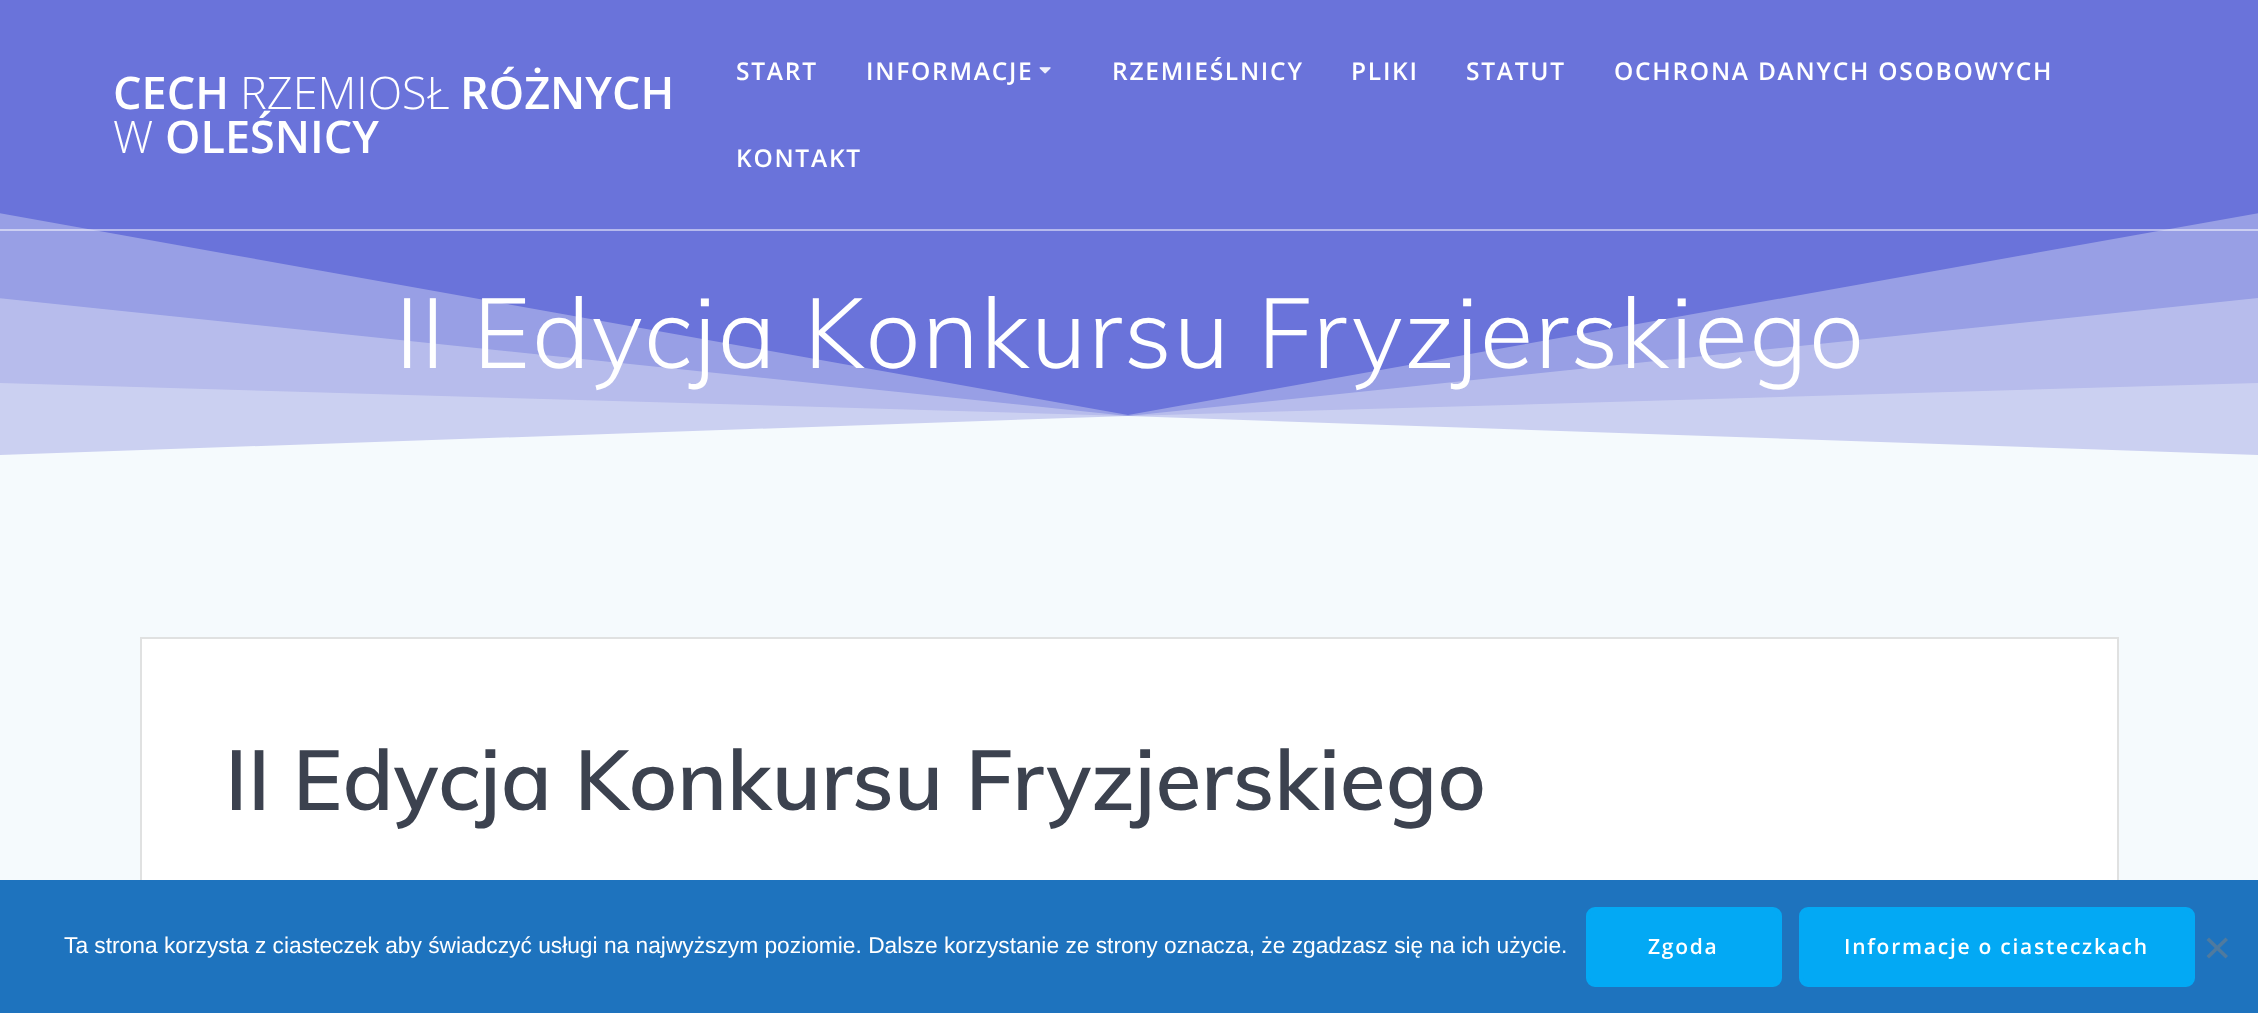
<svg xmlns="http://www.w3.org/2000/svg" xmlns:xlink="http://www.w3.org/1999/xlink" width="2258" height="1013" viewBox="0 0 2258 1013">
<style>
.cls-1{font:600 45px Open Sans;fill:#ffffff}
.cls-2{font:300 45px Open Sans;fill:#ffffff}
.cls-3{font:600 24.5px Open Sans;letter-spacing:1.75px;fill:#ffffff}
.cls-4{font:300 98px Muli;letter-spacing:1.6px;fill:#ffffff}
.cls-5{font:600 84px Muli;fill:#3c424f}
.cls-6{font:22.75px Liberation Sans;fill:#ffffff}
.cls-7{font:600 21px Open Sans;letter-spacing:1.75px;fill:#ffffff}
</style>
<rect width="100%" height="100%" fill="#6a73da"/>
<path fill="#f5fafd" fill-opacity="0.33" d="M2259 471V213L1128 415L-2 213V471Z"/>
<rect fill="#ffffff" fill-opacity="0.5" x="0" y="229" width="2258" height="2"/>
<image xlink:href="image0.png" x="1039" y="67" width="12" height="7"/>
<path fill="#f5fafd" fill-opacity="0.33" d="M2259 471V298L1128 416L-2 298V471Z"/>
<path fill="#f5fafd" fill-opacity="0.33" d="M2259 471V383L1128 416L-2 383V471Z"/>
<path fill="#f5fafd" d="M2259 471V455L1128 416L-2 455V471Z"/>
<rect fill="#f5fafd" x="0" y="471" width="2258" height="409"/>
<rect fill="#ffffff" x="142" y="639" width="1975" height="241"/>
<rect fill="none" stroke="#e0e1e1" stroke-width="2" x="141" y="638" width="1977" height="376"/>
<rect fill="#1e73be" x="0" y="880" width="2258" height="133"/>
<rect fill="#03a9f4" stroke="#03a9f4" stroke-width="4" x="1588" y="909" width="192" height="76" rx="7"/>
<rect fill="#03a9f4" stroke="#03a9f4" stroke-width="4" x="1801" y="909" width="392" height="76" rx="7"/>
<path fill="#4f7a9f" d="M2225.5 937.5L2228 940L2209 958.5L2206.5 956Z"/>
<path fill="#4f7a9f" d="M2206.5 940L2209 937.5L2228 956L2225.5 958.5Z"/>
<text class="cls-1" x="113" y="109">CECH</text>
<text class="cls-2" x="240" y="109">RZEMIOSŁ</text>
<text class="cls-1" x="460" y="109">RÓŻNYCH</text>
<text class="cls-2" x="113" y="153">W</text>
<text class="cls-1" x="165" y="153">OLEŚNICY</text>
<text class="cls-3" x="736" y="80">START</text>
<text class="cls-3" x="866" y="80">INFORMACJE</text>
<text class="cls-3" x="1112" y="80">RZEMIEŚLNICY</text>
<text class="cls-3" x="1351" y="80">PLIKI</text>
<text class="cls-3" x="1466" y="80">STATUT</text>
<text class="cls-3" x="1614" y="80">OCHRONA DANYCH OSOBOWYCH</text>
<text class="cls-3" x="736" y="167">KONTAKT</text>
<text class="cls-4" x="395" y="368">II Edycja Konkursu Fryzjerskiego</text>
<text class="cls-5" x="225" y="810">II Edycja Konkursu Fryzjerskiego</text>
<text class="cls-6" x="64" y="953">Ta strona korzysta z ciasteczek aby świadczyć usługi na najwyższym poziomie. Dalsze korzystanie ze strony oznacza, że zgadzasz się na ich użycie.</text>
<text class="cls-7" x="1648" y="954">Zgoda</text>
<text class="cls-7" x="1844" y="954">Informacje o ciasteczkach</text>
</svg>
